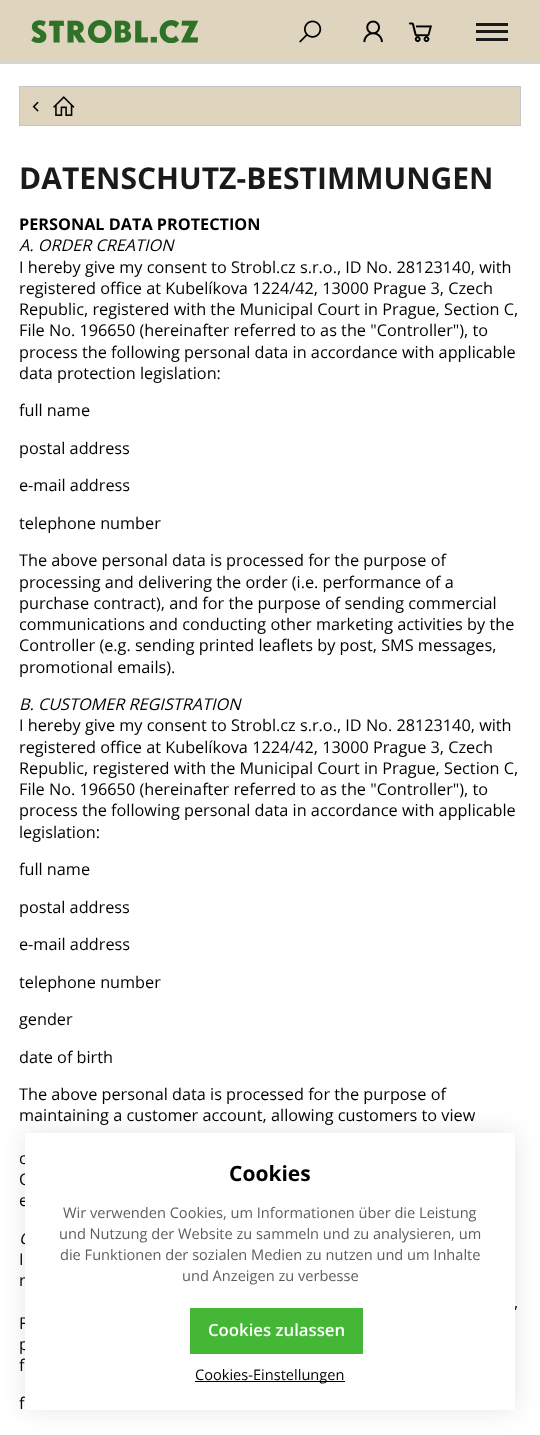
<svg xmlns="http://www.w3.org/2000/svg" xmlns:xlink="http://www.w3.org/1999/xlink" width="540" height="1435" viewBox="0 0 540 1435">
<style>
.cls-1{font:bold 30px Open Sans;fill:#1a1a1a}
.cls-2{font:bold 16.25px Open Sans;fill:#000000}
.cls-3{font:italic 16.25px Open Sans;fill:#000000}
.cls-4{font:16.25px Open Sans;fill:#000000}
.cls-5{font:bold 21px Open Sans;fill:#000000}
.cls-6{font:14.6px Open Sans;fill:#5e5e5e}
.cls-7{font:600 16.75px Open Sans;fill:#ffffff}
.cls-8{font:14.6px Open Sans;fill:#000000}
</style>
<rect width="100%" height="100%" fill="#ffffff"/>
<rect fill="#dfd5be" x="0" y="0" width="540" height="62"/>
<image xlink:href="image0.png" x="31" y="20" width="168" height="23"/>
<image xlink:href="image1.png" x="299" y="20" width="23" height="23"/>
<image xlink:href="image2.png" x="363" y="20" width="20" height="23"/>
<rect fill="#d6d6d6" x="449" y="16" width="1" height="32"/>
<image xlink:href="image3.png" x="408" y="22" width="24" height="21"/>
<rect fill="#1a1a1a" x="476" y="23" width="32" height="3"/>
<rect fill="#1a1a1a" x="476" y="30" width="32" height="3"/>
<rect fill="#1a1a1a" x="476" y="38" width="32" height="3"/>
<rect fill="#d6d6d6" x="0" y="62" width="540" height="2"/>
<rect fill="#dfd5be" stroke="#c7c7c7" x="19.5" y="86.5" width="501" height="39"/>
<image xlink:href="image4.png" x="32" y="101" width="7" height="11"/>
<image xlink:href="image5.png" x="53" y="96" width="22" height="20"/>
<rect fill="#000000" fill-opacity="0.1" filter="blur(12.5px)" x="25" y="1133" width="490" height="277"/>
<text class="cls-1" x="19" y="189">DATENSCHUTZ-BESTIMMUNGEN</text>
<text class="cls-2" x="19" y="230">PERSONAL DATA PROTECTION</text>
<text class="cls-3" x="19" y="251">A. ORDER CREATION</text>
<text class="cls-4"><tspan x="19" y="273">I hereby give my consent to Strobl.cz s.r.o., ID No. 28123140, with</tspan><tspan x="19" y="294">registered office at Kubelíkova 1224/42, 13000 Prague 3, Czech</tspan><tspan x="19" y="315">Republic, registered with the Municipal Court in Prague, Section C,</tspan><tspan x="19" y="336">File No. 196650 (hereinafter referred to as the "Controller"), to</tspan><tspan x="19" y="358">process the following personal data in accordance with applicable</tspan><tspan x="19" y="379">data protection legislation:</tspan></text>
<text class="cls-4" x="19" y="416">full name</text>
<text class="cls-4" x="19" y="454">postal address</text>
<text class="cls-4" x="19" y="491">e-mail address</text>
<text class="cls-4" x="19" y="529">telephone number</text>
<text class="cls-4"><tspan x="19" y="566">The above personal data is processed for the purpose of</tspan><tspan x="19" y="588">processing and delivering the order (i.e. performance of a</tspan><tspan x="19" y="609">purchase contract), and for the purpose of sending commercial</tspan><tspan x="19" y="630">communications and conducting other marketing activities by the</tspan><tspan x="19" y="651">Controller (e.g. sending printed leaflets by post, SMS messages,</tspan><tspan x="19" y="673">promotional emails).</tspan></text>
<text class="cls-3" x="19" y="710">B. CUSTOMER REGISTRATION</text>
<text class="cls-4"><tspan x="19" y="731">I hereby give my consent to Strobl.cz s.r.o., ID No. 28123140, with</tspan><tspan x="19" y="753">registered office at Kubelíkova 1224/42, 13000 Prague 3, Czech</tspan><tspan x="19" y="774">Republic, registered with the Municipal Court in Prague, Section C,</tspan><tspan x="19" y="795">File No. 196650 (hereinafter referred to as the "Controller"), to</tspan><tspan x="19" y="816">process the following personal data in accordance with applicable</tspan><tspan x="19" y="838">legislation:</tspan></text>
<text class="cls-4" x="19" y="875">full name</text>
<text class="cls-4" x="19" y="913">postal address</text>
<text class="cls-4" x="19" y="950">e-mail address</text>
<text class="cls-4" x="19" y="988">telephone number</text>
<text class="cls-4" x="19" y="1025">gender</text>
<text class="cls-4" x="19" y="1063">date of birth</text>
<text class="cls-4"><tspan x="19" y="1100">The above personal data is processed for the purpose of</tspan><tspan x="19" y="1121">maintaining a customer account, allowing customers to view</tspan></text>
<text class="cls-4"><tspan x="19" y="1164">c</tspan><tspan x="19" y="1185">C</tspan><tspan x="19" y="1206">e</tspan></text>
<text class="cls-3" x="19" y="1244">C</text>
<text class="cls-4"><tspan x="19" y="1265">I</tspan><tspan x="19" y="1286">r</tspan></text>
<text class="cls-4" x="514" y="1308">,</text>
<text class="cls-4"><tspan x="19" y="1329">F</tspan><tspan x="19" y="1350">p</tspan><tspan x="19" y="1371">f</tspan></text>
<text class="cls-4" x="19" y="1409">f</text>
<rect fill="#ffffff" x="25" y="1133" width="490" height="277"/>
<text class="cls-5" x="229" y="1181">Cookies</text>
<text class="cls-6" x="63" y="1218">Wir verwenden Cookies, um Informationen über die Leistung</text>
<text class="cls-6" x="59" y="1239">und Nutzung der Website zu sammeln und zu analysieren, um</text>
<text class="cls-6" x="60" y="1260">die Funktionen der sozialen Medien zu nutzen und um Inhalte</text>
<text class="cls-6" x="182" y="1281">und Anzeigen zu verbesse</text>
<rect fill="#44b736" x="190" y="1308" width="173" height="46"/>
<text class="cls-7" x="208" y="1336">Cookies zulassen</text>
<rect fill="#000000" x="195" y="1381" width="150" height="1"/>
<text class="cls-8" x="195" y="1380">Cookies-Einstellungen</text>
</svg>
